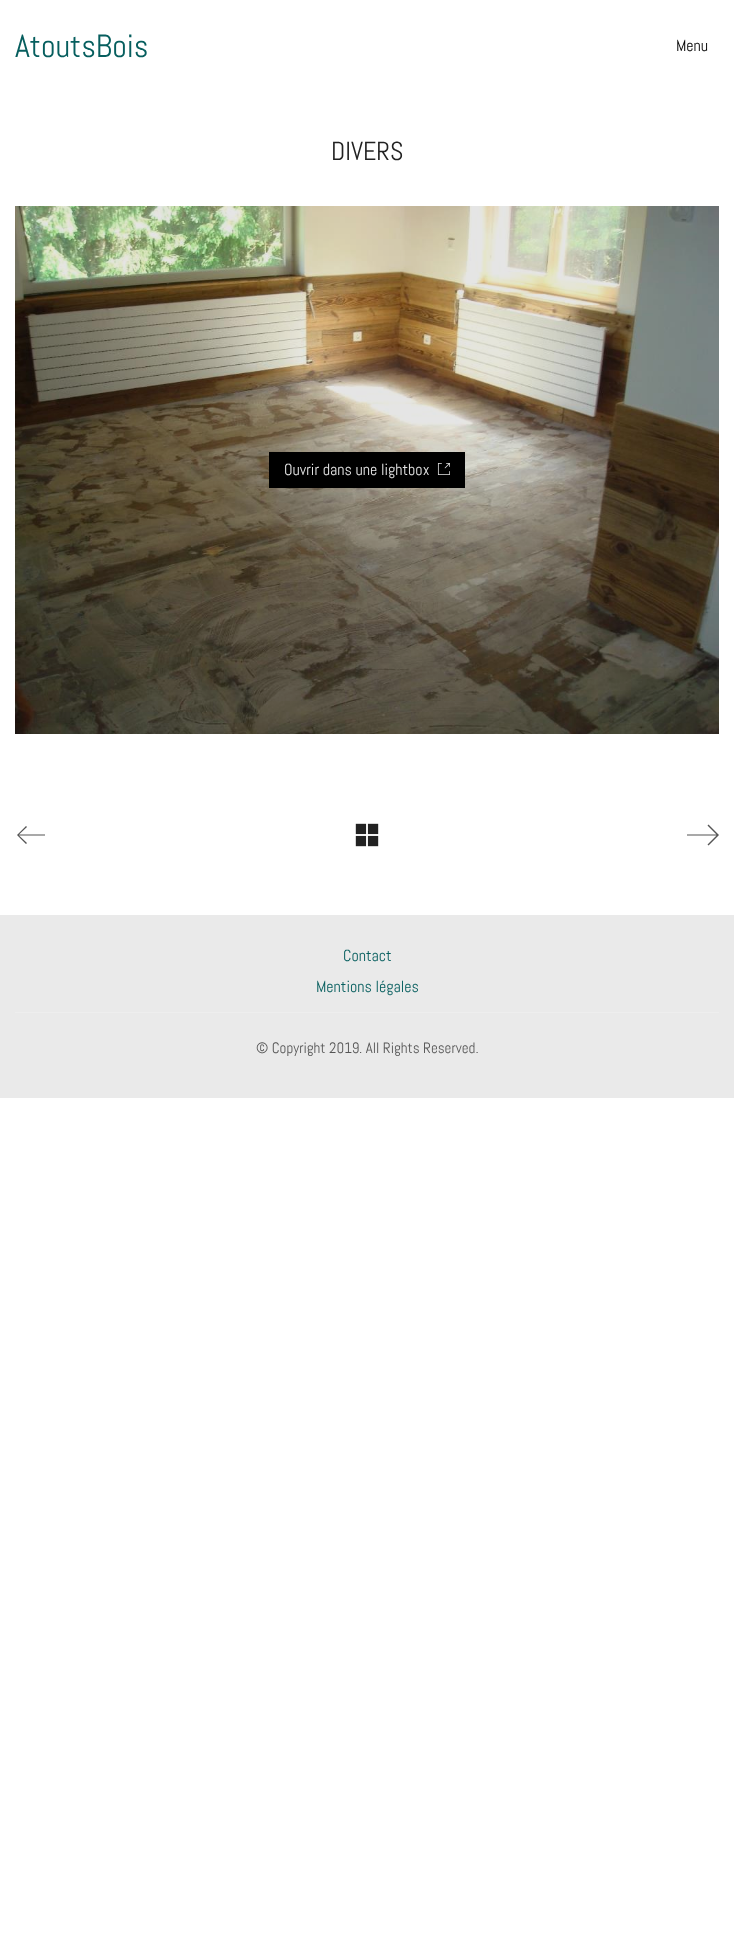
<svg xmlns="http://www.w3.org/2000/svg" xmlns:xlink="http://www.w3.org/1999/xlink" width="734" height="1934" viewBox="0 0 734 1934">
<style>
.cls-1{font:32px Abel;fill:#065e5e}
.cls-2{font:16px Abel;fill:#000000}
.cls-3{font:26px Abel;fill:#222222}
.cls-4{font:16px Abel;fill:#e6e6e6}
.cls-5{font:16px Abel;fill:#065e5e}
.cls-6{font:15px Abel;fill:#555555}
</style>
<rect width="100%" height="100%" fill="#ffffff"/>
<image xlink:href="image0.png" x="15" y="206" width="704" height="528"/>
<rect fill="#000000" x="269" y="452" width="196" height="36"/>
<image xlink:href="image1.png" x="437" y="463" width="13" height="12"/>
<path fill="#555555" d="M45 834.5H19L27 827L26 826L17 835L26 844L27 843L19 835.5H45Z"/>
<image xlink:href="image2.png" x="355" y="823" width="24" height="24"/>
<path fill="#555555" d="M708.5 824.5L707.5 825.5L716.5 834.5H687V835.5H716.5L707.5 844.5L708.5 845.5L719 835Z"/>
<rect fill="#eaeaea" x="0" y="915" width="734" height="183"/>
<rect fill="#eeeeee" x="15" y="1012" width="704" height="1"/>
<text class="cls-1" x="15" y="57">AtoutsBois</text>
<text class="cls-2" x="676" y="51">Menu</text>
<text class="cls-3" x="331" y="160">DIVERS</text>
<text class="cls-4" x="284" y="475">Ouvrir dans une lightbox</text>
<text class="cls-5" x="343" y="961">Contact</text>
<text class="cls-5" x="316" y="992">Mentions légales</text>
<text class="cls-6" x="256" y="1053">© Copyright 2019. All Rights Reserved.</text>
</svg>
